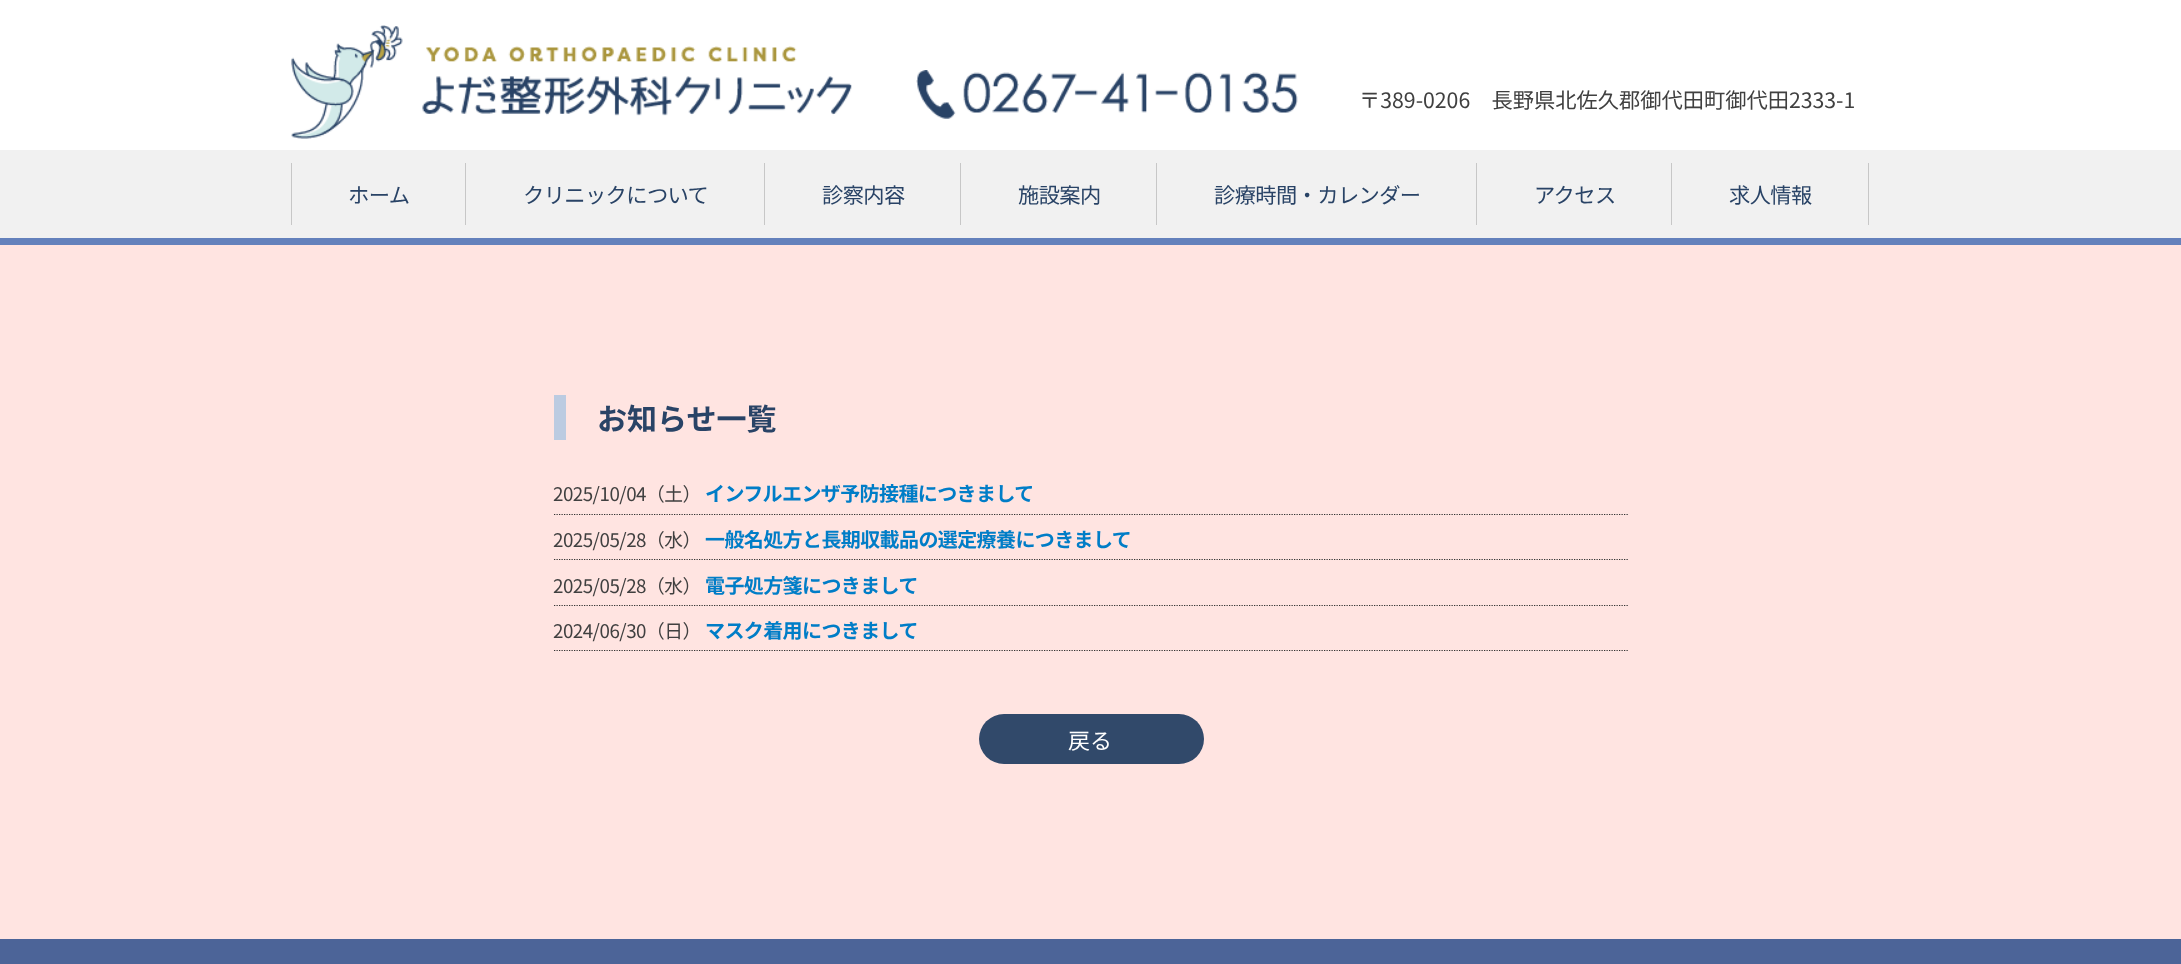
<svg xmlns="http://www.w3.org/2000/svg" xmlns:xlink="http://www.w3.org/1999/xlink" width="2181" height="964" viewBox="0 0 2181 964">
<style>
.cls-1{font:21.25px Noto Sans JP;fill:#404040}
.cls-2{font:21.25px Noto Sans JP;letter-spacing:-0.6px;fill:#294366}
.cls-3{font:bold 30px Noto Sans JP;fill:#294366}
.cls-4{font:18.75px Noto Sans JP;letter-spacing:-0.5px;fill:#404040}
.cls-5{font:bold 20px Noto Sans JP;letter-spacing:-0.6px;fill:#007dc7}
.cls-6{font:22px Noto Sans JP;fill:#ffffff}
</style>
<rect width="100%" height="100%" fill="#ffe4e1"/>
<rect fill="#ffffff" x="0" y="0" width="2181" height="150"/>
<image xlink:href="image0.png" x="291" y="25" width="561" height="114"/>
<image xlink:href="image1.png" x="916" y="70" width="382" height="49"/>
<rect fill="#f1f1f1" x="0" y="150" width="2181" height="88"/>
<rect fill="#6481bc" x="0" y="238" width="2181" height="7"/>
<rect fill="#c7c7c7" x="291" y="163" width="1" height="62"/>
<rect fill="#c7c7c7" x="465" y="163" width="1" height="62"/>
<rect fill="#c7c7c7" x="764" y="163" width="1" height="62"/>
<rect fill="#c7c7c7" x="960" y="163" width="1" height="62"/>
<rect fill="#c7c7c7" x="1156" y="163" width="1" height="62"/>
<rect fill="#c7c7c7" x="1476" y="163" width="1" height="62"/>
<rect fill="#c7c7c7" x="1868" y="163" width="1" height="62"/>
<rect fill="#c7c7c7" x="1671" y="163" width="1" height="62"/>
<rect fill="#bccbe1" x="554" y="395" width="12" height="45"/>
<path fill="none" stroke="#333333" stroke-width="1.2" stroke-dasharray="1.25 1.25" d="M554 650.5H1629"/>
<path fill="none" stroke="#333333" stroke-width="1.2" stroke-dasharray="1.25 1.25" d="M554 514.5H1629"/>
<path fill="none" stroke="#333333" stroke-width="1.2" stroke-dasharray="1.25 1.25" d="M554 559.5H1629"/>
<path fill="none" stroke="#333333" stroke-width="1.2" stroke-dasharray="1.25 1.25" d="M554 605.5H1629"/>
<rect fill="#31496a" x="979" y="714" width="225" height="50" rx="25"/>
<rect fill="#4c6498" x="0" y="939" width="2181" height="25"/>
<text class="cls-1" x="1359" y="108">〒389-0206　長野県北佐久郡御代田町御代田2333-1</text>
<text class="cls-2" x="348" y="203">ホーム</text>
<text class="cls-2" x="523" y="203">クリニックについて</text>
<text class="cls-2" x="822" y="203">診察内容</text>
<text class="cls-2" x="1018" y="203">施設案内</text>
<text class="cls-2" x="1214" y="203">診療時間・カレンダー</text>
<text class="cls-2" x="1534" y="203">アクセス</text>
<text class="cls-2" x="1729" y="203">求人情報</text>
<text class="cls-3" x="597" y="430">お知らせ一覧</text>
<text class="cls-4" x="553" y="501">2025/10/04（土）</text>
<text class="cls-5" x="705" y="501">インフルエンザ予防接種につきまして</text>
<text class="cls-4" x="553" y="547">2025/05/28（水）</text>
<text class="cls-5" x="705" y="547">一般名処方と長期収載品の選定療養につきまして</text>
<text class="cls-4" x="553" y="593">2025/05/28（水）</text>
<text class="cls-5" x="705" y="593">電子処方箋につきまして</text>
<text class="cls-4" x="553" y="638">2024/06/30（日）</text>
<text class="cls-5" x="705" y="638">マスク着用につきまして</text>
<text class="cls-6" x="1068" y="749">戻る</text>
</svg>
